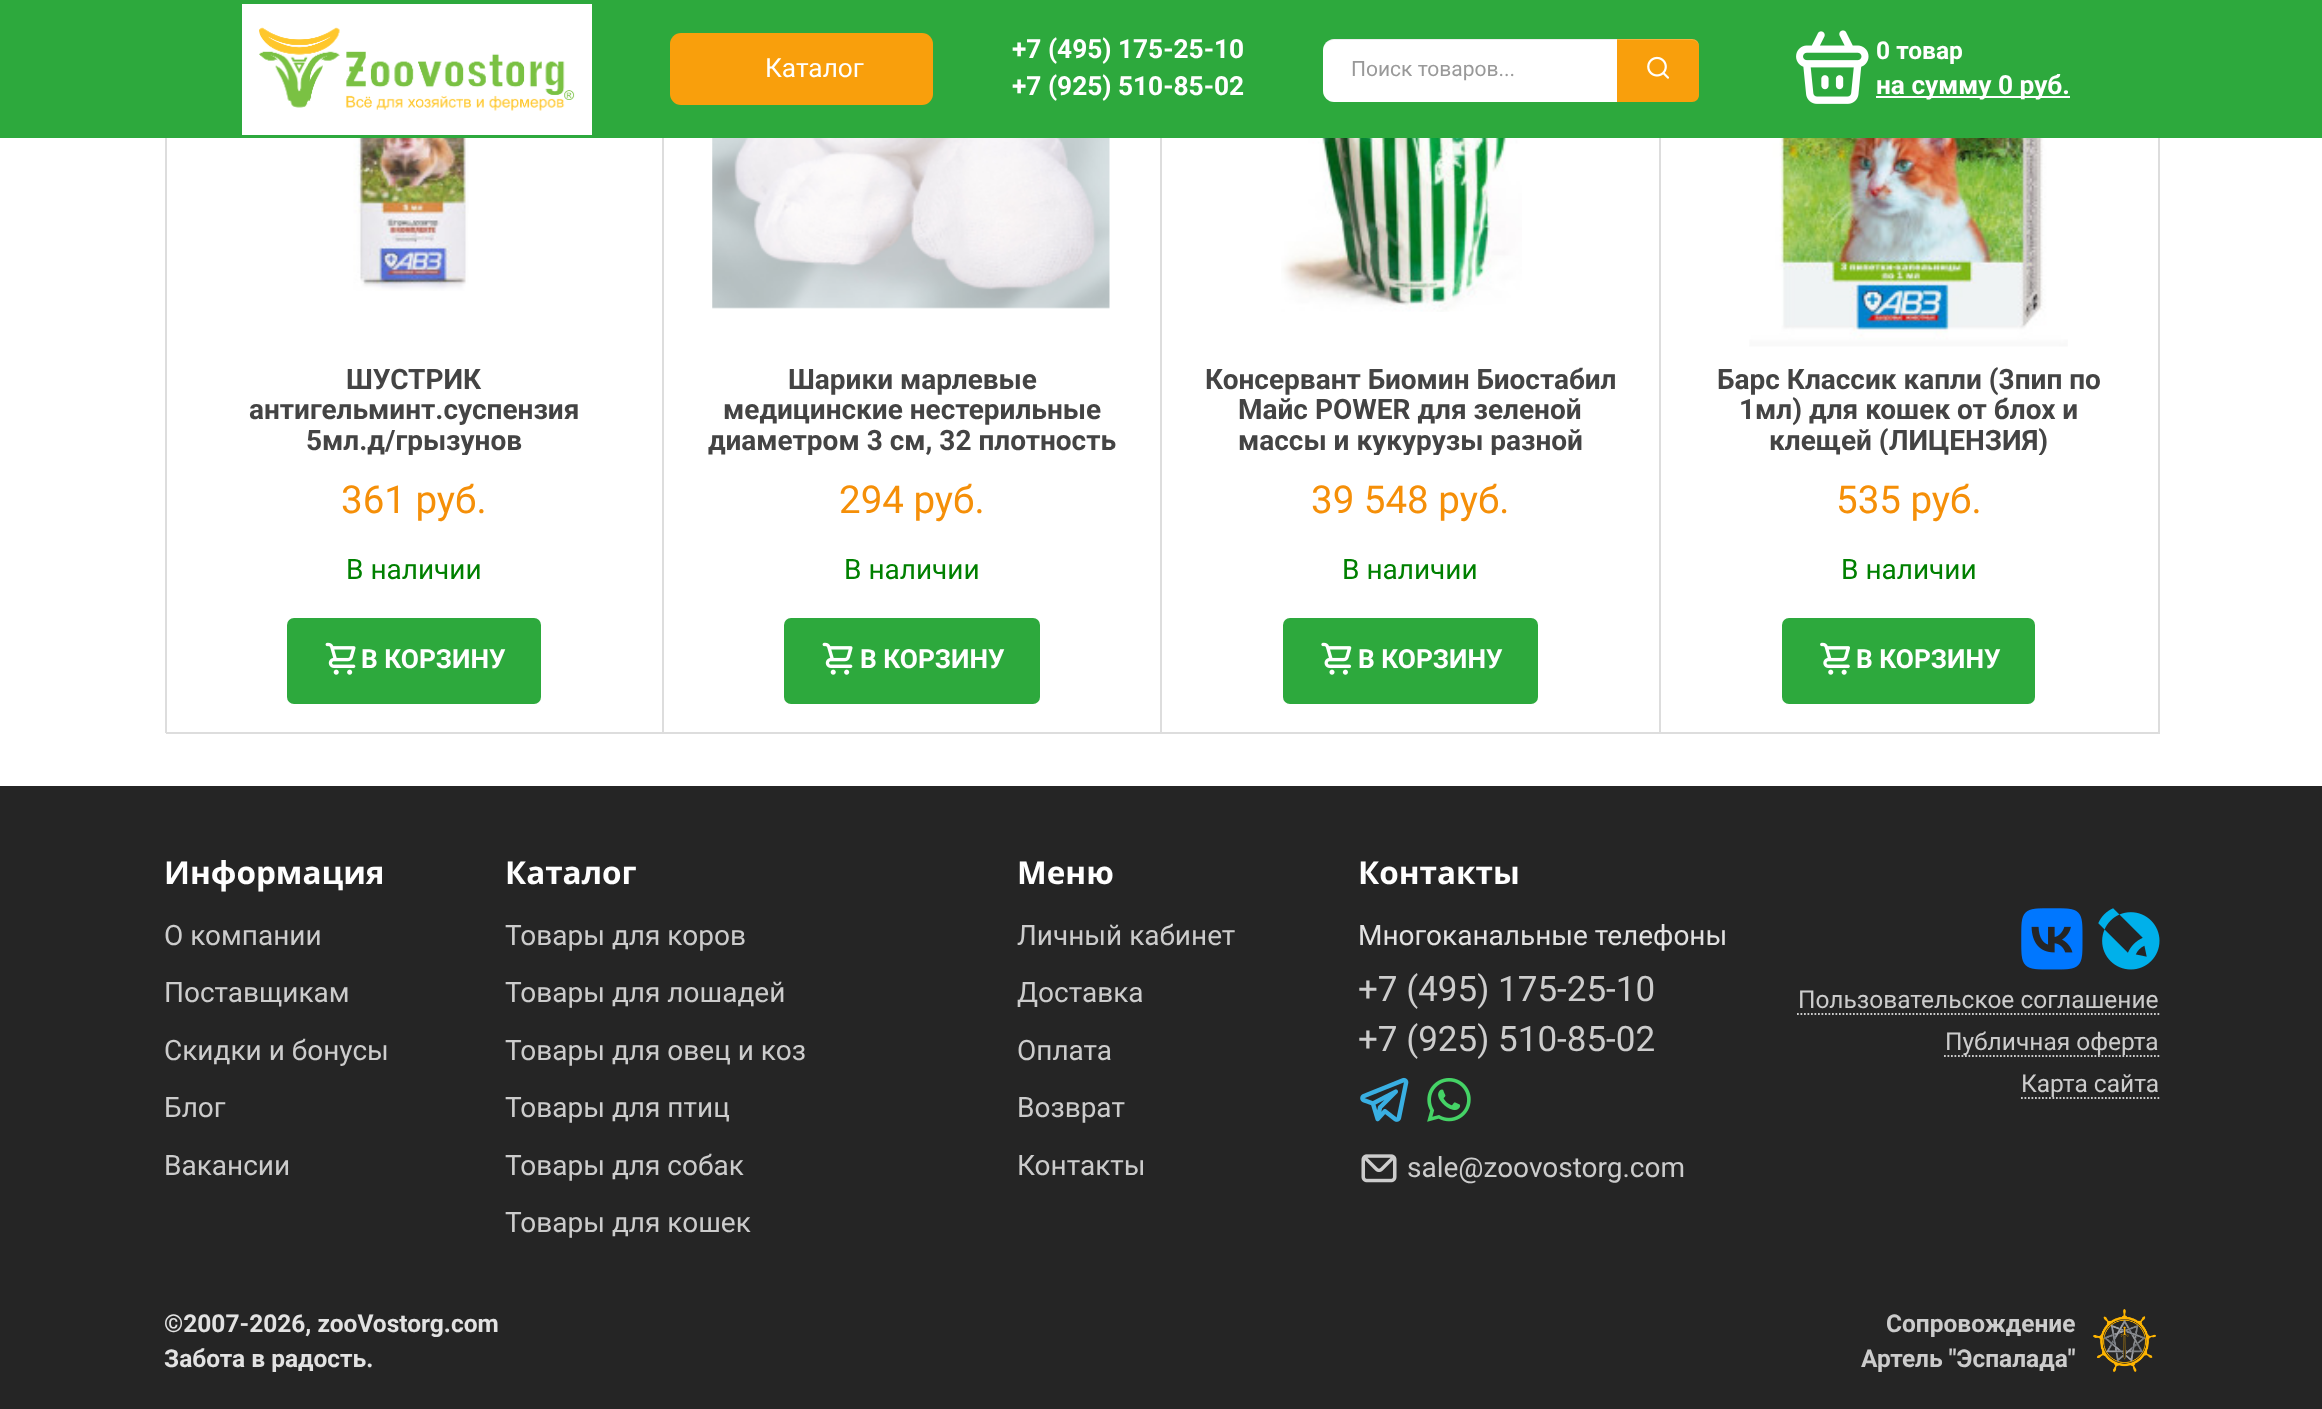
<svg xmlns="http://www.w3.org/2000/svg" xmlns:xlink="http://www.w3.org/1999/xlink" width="2322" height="1409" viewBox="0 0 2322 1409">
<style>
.cls-1{font:26.25px Roboto;fill:#ffffff}
.cls-2{font:bold 26.25px Roboto;fill:#ffffff}
.cls-3{font:21px Roboto;fill:#999999}
.cls-4{font:bold 24.5px Roboto;fill:#ffffff}
.cls-5{font:bold 28px Roboto;fill:#444444}
.cls-6{font:38.5px Roboto;fill:#f58f08}
.cls-7{font:28px Roboto;fill:#008000}
.cls-8{font:bold 31.5px Open Sans;fill:#ffffff}
.cls-9{font:28px Roboto;fill:#cccccc}
.cls-10{font:28px Roboto;fill:#e2e2e2}
.cls-11{font:35px Roboto;fill:#cccccc}
.cls-12{font:24.5px Roboto;fill:#cccccc}
.cls-13{font:bold 24.5px Roboto;fill:#e2e2e2}
.cls-14{font:bold 24.5px Roboto;fill:#cccccc}
</style>
<defs>
<clipPath id="clip1"><rect x="201" y="364" width="426" height="91"/></clipPath>
<clipPath id="clip2"><rect x="698" y="364" width="427" height="91"/></clipPath>
<clipPath id="clip3"><rect x="1197" y="364" width="427" height="91"/></clipPath>
<clipPath id="clip4"><rect x="1696" y="364" width="427" height="91"/></clipPath>
</defs>
<rect width="100%" height="100%" fill="#ffffff"/>
<rect fill="#2da93d" x="0" y="0" width="2322" height="138"/>
<rect fill="#ffffff" x="242" y="4" width="350" height="131"/>
<image xlink:href="image0.png" x="259" y="27" width="316" height="84"/>
<rect fill="#f99f0c" x="670" y="33" width="263" height="72" rx="11"/>
<path fill="#ffffff" d="M1334 39H1619V102H1334C1328 102 1323 97 1323 91V50C1323 44 1328 39 1334 39Z"/>
<path fill="#000000" fill-opacity="0.07" d="M1334 40H1619V39H1334C1328 39 1323 44 1323 50V51C1323 45 1328 40 1334 40Z"/>
<path fill="#f99f0c" d="M1617 39H1692C1696 39 1699 42 1699 46V95C1699 99 1696 102 1692 102H1617Z"/>
<path fill="#ffffff" fill-opacity="0.2" d="M1617 40H1692C1696 40 1699 43 1699 47V46C1699 42 1696 39 1692 39H1617Z"/>
<image xlink:href="image1.png" x="1647" y="56" width="23" height="23"/>
<image xlink:href="image2.png" x="1796" y="30" width="73" height="74"/>
<rect fill="#ffffff" x="1876" y="96" width="194" height="2"/>
<rect fill="#dddddd" x="165" y="138" width="2" height="595"/>
<rect fill="#dddddd" x="662" y="138" width="2" height="595"/>
<rect fill="#dddddd" x="166" y="732" width="497" height="2"/>
<image xlink:href="image3.png" x="353" y="138" width="116" height="153"/>
<rect fill="#2da93d" x="287" y="618" width="254" height="86" rx="7"/>
<image xlink:href="image4.png" x="325" y="642" width="31" height="33"/>
<rect fill="#dddddd" x="1160" y="138" width="2" height="595"/>
<rect fill="#dddddd" x="663" y="732" width="499" height="2"/>
<image xlink:href="image5.png" x="712" y="138" width="398" height="171"/>
<rect fill="#2da93d" x="784" y="618" width="256" height="86" rx="7"/>
<image xlink:href="image4.png" x="822" y="642" width="31" height="33"/>
<rect fill="#dddddd" x="1659" y="138" width="2" height="595"/>
<rect fill="#dddddd" x="1162" y="732" width="499" height="2"/>
<image xlink:href="image6.png" x="1281" y="138" width="241" height="174"/>
<rect fill="#2da93d" x="1283" y="618" width="255" height="86" rx="7"/>
<image xlink:href="image7.png" x="1321" y="642" width="31" height="33"/>
<rect fill="#dddddd" x="2158" y="138" width="2" height="595"/>
<rect fill="#dddddd" x="1661" y="732" width="499" height="2"/>
<image xlink:href="image8.png" x="1749" y="138" width="319" height="209"/>
<rect fill="#2da93d" x="1782" y="618" width="253" height="86" rx="7"/>
<image xlink:href="image9.png" x="1820" y="642" width="30" height="33"/>
<rect fill="#252525" x="0" y="786" width="2322" height="623"/>
<image xlink:href="image10.png" x="1360" y="1077" width="49" height="45"/>
<image xlink:href="image11.png" x="1427" y="1078" width="44" height="44"/>
<image xlink:href="image12.png" x="1361" y="1154" width="36" height="29"/>
<image xlink:href="image13.png" x="2021" y="908" width="62" height="62"/>
<image xlink:href="image14.png" x="2098" y="908" width="62" height="62"/>
<path fill="none" stroke="#cccccc" stroke-width="1.8" stroke-dasharray="1.75 1.75" d="M1797 1014H2159.5"/>
<path fill="none" stroke="#cccccc" stroke-width="1.8" stroke-dasharray="1.75 1.75" d="M1944 1056H2159.5"/>
<path fill="none" stroke="#cccccc" stroke-width="1.8" stroke-dasharray="1.75 1.75" d="M2021 1098H2159.5"/>
<image xlink:href="image15.png" x="2093" y="1309" width="63" height="63"/>
<text class="cls-1" x="765" y="77">Каталог</text>
<text class="cls-2"><tspan x="1012" y="58">+7 (495) 175-25-10</tspan><tspan x="1012" y="95">+7 (925) 510-85-02</tspan></text>
<text class="cls-3" x="1351" y="76">Поиск товаров...</text>
<text class="cls-4" x="1876" y="59">0 товар</text>
<text class="cls-2" x="1876" y="94">на сумму 0 руб.</text>
<text class="cls-5" x="346" y="389">ШУСТРИК</text>
<text class="cls-5" x="249" y="419">антигельминт.суспензия</text>
<g clip-path="url(#clip1)">
<text class="cls-5" x="306" y="450">5мл.д/грызунов</text>
</g>
<text class="cls-6" x="341" y="513">361 руб.</text>
<text class="cls-7" x="346" y="579">В наличии</text>
<text class="cls-2" x="361" y="668">В КОРЗИНУ</text>
<text class="cls-5" x="788" y="389">Шарики марлевые</text>
<text class="cls-5" x="723" y="419">медицинские нестерильные</text>
<g clip-path="url(#clip2)">
<text class="cls-5" x="708" y="450">диаметром 3 см, 32 плотность</text>
</g>
<text class="cls-6" x="839" y="513">294 руб.</text>
<text class="cls-7" x="844" y="579">В наличии</text>
<text class="cls-2" x="860" y="668">В КОРЗИНУ</text>
<text class="cls-5" x="1205" y="389">Консервант Биомин Биостабил</text>
<text class="cls-5" x="1238" y="419">Майс POWER для зеленой</text>
<g clip-path="url(#clip3)">
<text class="cls-5" x="1238" y="450">массы и кукурузы разной</text>
</g>
<text class="cls-6" x="1311" y="513">39 548 руб.</text>
<text class="cls-7" x="1342" y="579">В наличии</text>
<text class="cls-2" x="1358" y="668">В КОРЗИНУ</text>
<text class="cls-5" x="1717" y="389">Барс Классик капли (3пип по</text>
<text class="cls-5" x="1739" y="419">1мл) для кошек от блох и</text>
<g clip-path="url(#clip4)">
<text class="cls-5" x="1769" y="450">клещей (ЛИЦЕНЗИЯ)</text>
</g>
<text class="cls-6" x="1836" y="513">535 руб.</text>
<text class="cls-7" x="1841" y="579">В наличии</text>
<text class="cls-2" x="1856" y="668">В КОРЗИНУ</text>
<text class="cls-8" x="164" y="884">Информация</text>
<text class="cls-9" x="164" y="945">О компании</text>
<text class="cls-9" x="164" y="1002">Поставщикам</text>
<text class="cls-9" x="164" y="1060">Скидки и бонусы</text>
<text class="cls-9" x="164" y="1117">Блог</text>
<text class="cls-9" x="164" y="1175">Вакансии</text>
<text class="cls-8" x="505" y="884">Каталог</text>
<text class="cls-9" x="505" y="945">Товары для коров</text>
<text class="cls-9" x="505" y="1002">Товары для лошадей</text>
<text class="cls-9" x="505" y="1060">Товары для овец и коз</text>
<text class="cls-9" x="505" y="1117">Товары для птиц</text>
<text class="cls-9" x="505" y="1175">Товары для собак</text>
<text class="cls-9" x="505" y="1232">Товары для кошек</text>
<text class="cls-8" x="1017" y="884">Меню</text>
<text class="cls-9" x="1017" y="945">Личный кабинет</text>
<text class="cls-9" x="1017" y="1002">Доставка</text>
<text class="cls-9" x="1017" y="1060">Оплата</text>
<text class="cls-9" x="1017" y="1117">Возврат</text>
<text class="cls-9" x="1017" y="1175">Контакты</text>
<text class="cls-8" x="1358" y="884">Контакты</text>
<text class="cls-10" x="1358" y="945">Многоканальные телефоны</text>
<text class="cls-11"><tspan x="1358" y="1001">+7 (495) 175-25-10</tspan><tspan x="1358" y="1051">+7 (925) 510-85-02</tspan></text>
<text class="cls-9" x="1407" y="1177">sale@zoovostorg.com</text>
<text class="cls-12" x="1798" y="1008">Пользовательское соглашение</text>
<text class="cls-12" x="1945" y="1050">Публичная оферта</text>
<text class="cls-12" x="2021" y="1092">Карта сайта</text>
<text class="cls-13"><tspan x="164" y="1332">©2007-2026, zooVostorg.com</tspan><tspan x="164" y="1367">Забота в радость.</tspan></text>
<text class="cls-14" x="1886" y="1332">Сопровождение</text>
<text class="cls-14" x="1861" y="1367">Артель "Эспалада"</text>
</svg>
